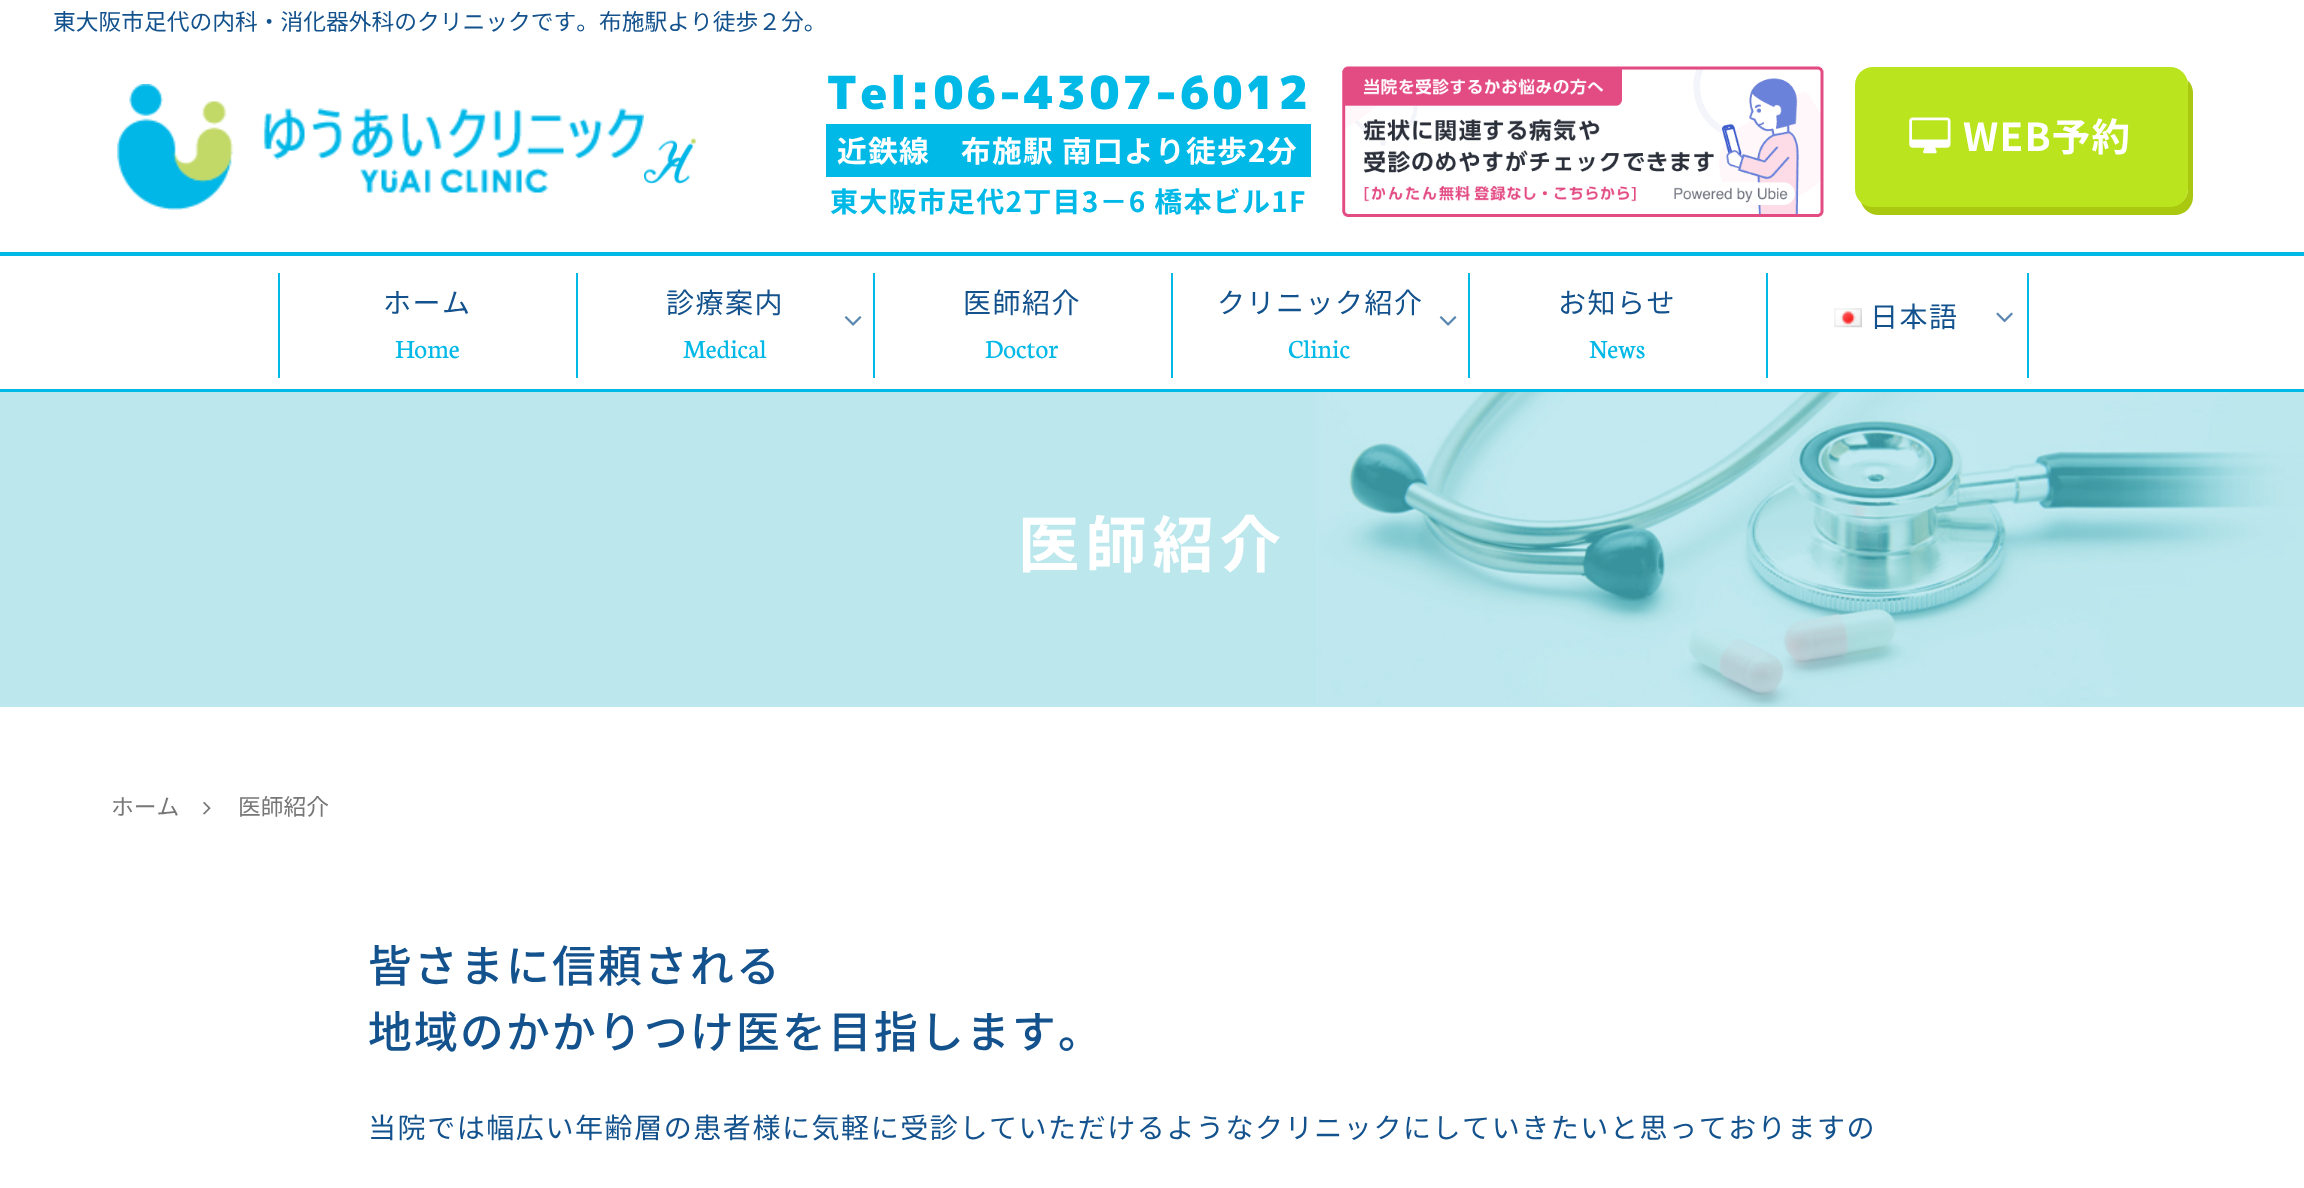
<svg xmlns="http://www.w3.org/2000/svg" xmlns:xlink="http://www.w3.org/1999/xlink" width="2304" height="1188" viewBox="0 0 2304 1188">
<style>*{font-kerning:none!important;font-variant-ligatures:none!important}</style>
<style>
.cls-1{font:22.75px Noto Sans JP;fill:#13528d}
.cls-2{font:900 45.5px 'M PLUS 1p';letter-spacing:2.75px;fill:#00b9e7}
.cls-3{font:bold 29.75px Noto Sans JP;letter-spacing:1.25px;fill:#ffffff}
.cls-4{font:bold 28px Noto Sans JP;letter-spacing:1.25px;fill:#00b9e7}
.cls-5{font:bold 38.5px Noto Sans JP;letter-spacing:1.25px;fill:#ffffff}
.cls-6{font:28px Noto Sans JP;letter-spacing:1.5px;fill:#13528d}
.cls-7{font:28px Neuton;fill:#00b9e7}
.cls-8{font:bold 61.25px Noto Sans JP;letter-spacing:6px;fill:#ffffff}
.cls-9{font:22.75px Noto Sans JP;fill:#777777}
.cls-10{font:500 43.75px Noto Sans JP;letter-spacing:2.25px;fill:#13528d}
.cls-11{font:28px Noto Sans JP;letter-spacing:1.57px;fill:#13528d}
</style>
<rect width="100%" height="100%" fill="#ffffff"/>
<image xlink:href="image0.png" x="117" y="84" width="527" height="126"/>
<image xlink:href="image1.png" x="644" y="137" width="53" height="47"/>
<rect fill="#00b9e7" x="826" y="124" width="485" height="53"/>
<image xlink:href="image2.png" x="1342" y="66" width="482" height="151"/>
<path fill="#aac80f" d="M1861 202C1863 209 1870 215 1878 215H2175C2185 215 2193 207 2193 197V93C2193 88 2191 83 2187 80L2188 84V189C2188 199 2180 206 2170 206H1872C1868 206 1864 205 1861 202Z"/>
<rect fill="#bae41e" x="1855" y="67" width="333" height="140" rx="18"/>
<image xlink:href="image3.png" x="1909" y="117" width="42" height="37"/>
<rect fill="#00b9e7" x="0" y="252" width="2304" height="4"/>
<rect fill="#00b9e7" x="0" y="389" width="2304" height="3"/>
<rect fill="#00b9e7" x="278" y="273" width="2" height="105"/>
<rect fill="#00b9e7" x="576" y="273" width="2" height="105"/>
<image xlink:href="image4.png" x="844" y="316" width="18" height="10"/>
<rect fill="#00b9e7" x="873" y="273" width="2" height="105"/>
<rect fill="#00b9e7" x="1171" y="273" width="2" height="105"/>
<image xlink:href="image4.png" x="1439" y="316" width="18" height="10"/>
<rect fill="#00b9e7" x="1468" y="273" width="2" height="105"/>
<rect fill="#00b9e7" x="2027" y="273" width="2" height="105"/>
<rect fill="#00b9e7" x="1766" y="273" width="2" height="105"/>
<image xlink:href="image5.png" x="1834" y="308" width="28" height="20"/>
<image xlink:href="image6.png" x="1996" y="312" width="17" height="11"/>
<image xlink:href="image7.png" x="0" y="392" width="2304" height="315"/>
<image xlink:href="image8.png" x="203" y="801" width="8" height="14"/>
<text class="cls-1" x="53" y="30">東大阪市足代の内科・消化器外科のクリニックです。布施駅より徒歩２分。</text>
<text class="cls-2" x="826" y="109">Tel:06-4307-6012</text>
<text class="cls-3" x="837" y="162">近鉄線　布施駅 南口より徒歩2分</text>
<text class="cls-4" x="830" y="212">東大阪市足代2丁目3－6 橋本ビル1F</text>
<text class="cls-5" x="1963" y="151">WEB予約</text>
<text class="cls-6" x="383" y="313">ホーム</text>
<text class="cls-7" x="395" y="358">Home</text>
<text class="cls-6" x="666" y="313">診療案内</text>
<text class="cls-7" x="683" y="358">Medical</text>
<text class="cls-6" x="963" y="313">医師紹介</text>
<text class="cls-7" x="985" y="358">Doctor</text>
<text class="cls-6" x="1217" y="313">クリニック紹介</text>
<text class="cls-7" x="1288" y="358">Clinic</text>
<text class="cls-6" x="1558" y="313">お知らせ</text>
<text class="cls-7" x="1589" y="358">News</text>
<text class="cls-6" x="1870" y="327">日本語</text>
<text class="cls-8" x="1018" y="567">医師紹介</text>
<text class="cls-9" x="111" y="815">ホーム</text>
<text class="cls-9" x="238" y="815">医師紹介</text>
<text class="cls-10"><tspan x="368" y="982">皆さまに信頼される</tspan><tspan x="368" y="1048">地域のかかりつけ医を目指します。</tspan></text>
<text class="cls-11" x="368" y="1138">当院では幅広い年齢層の患者様に気軽に受診していただけるようなクリニックにしていきたいと思っておりますの</text>
</svg>
